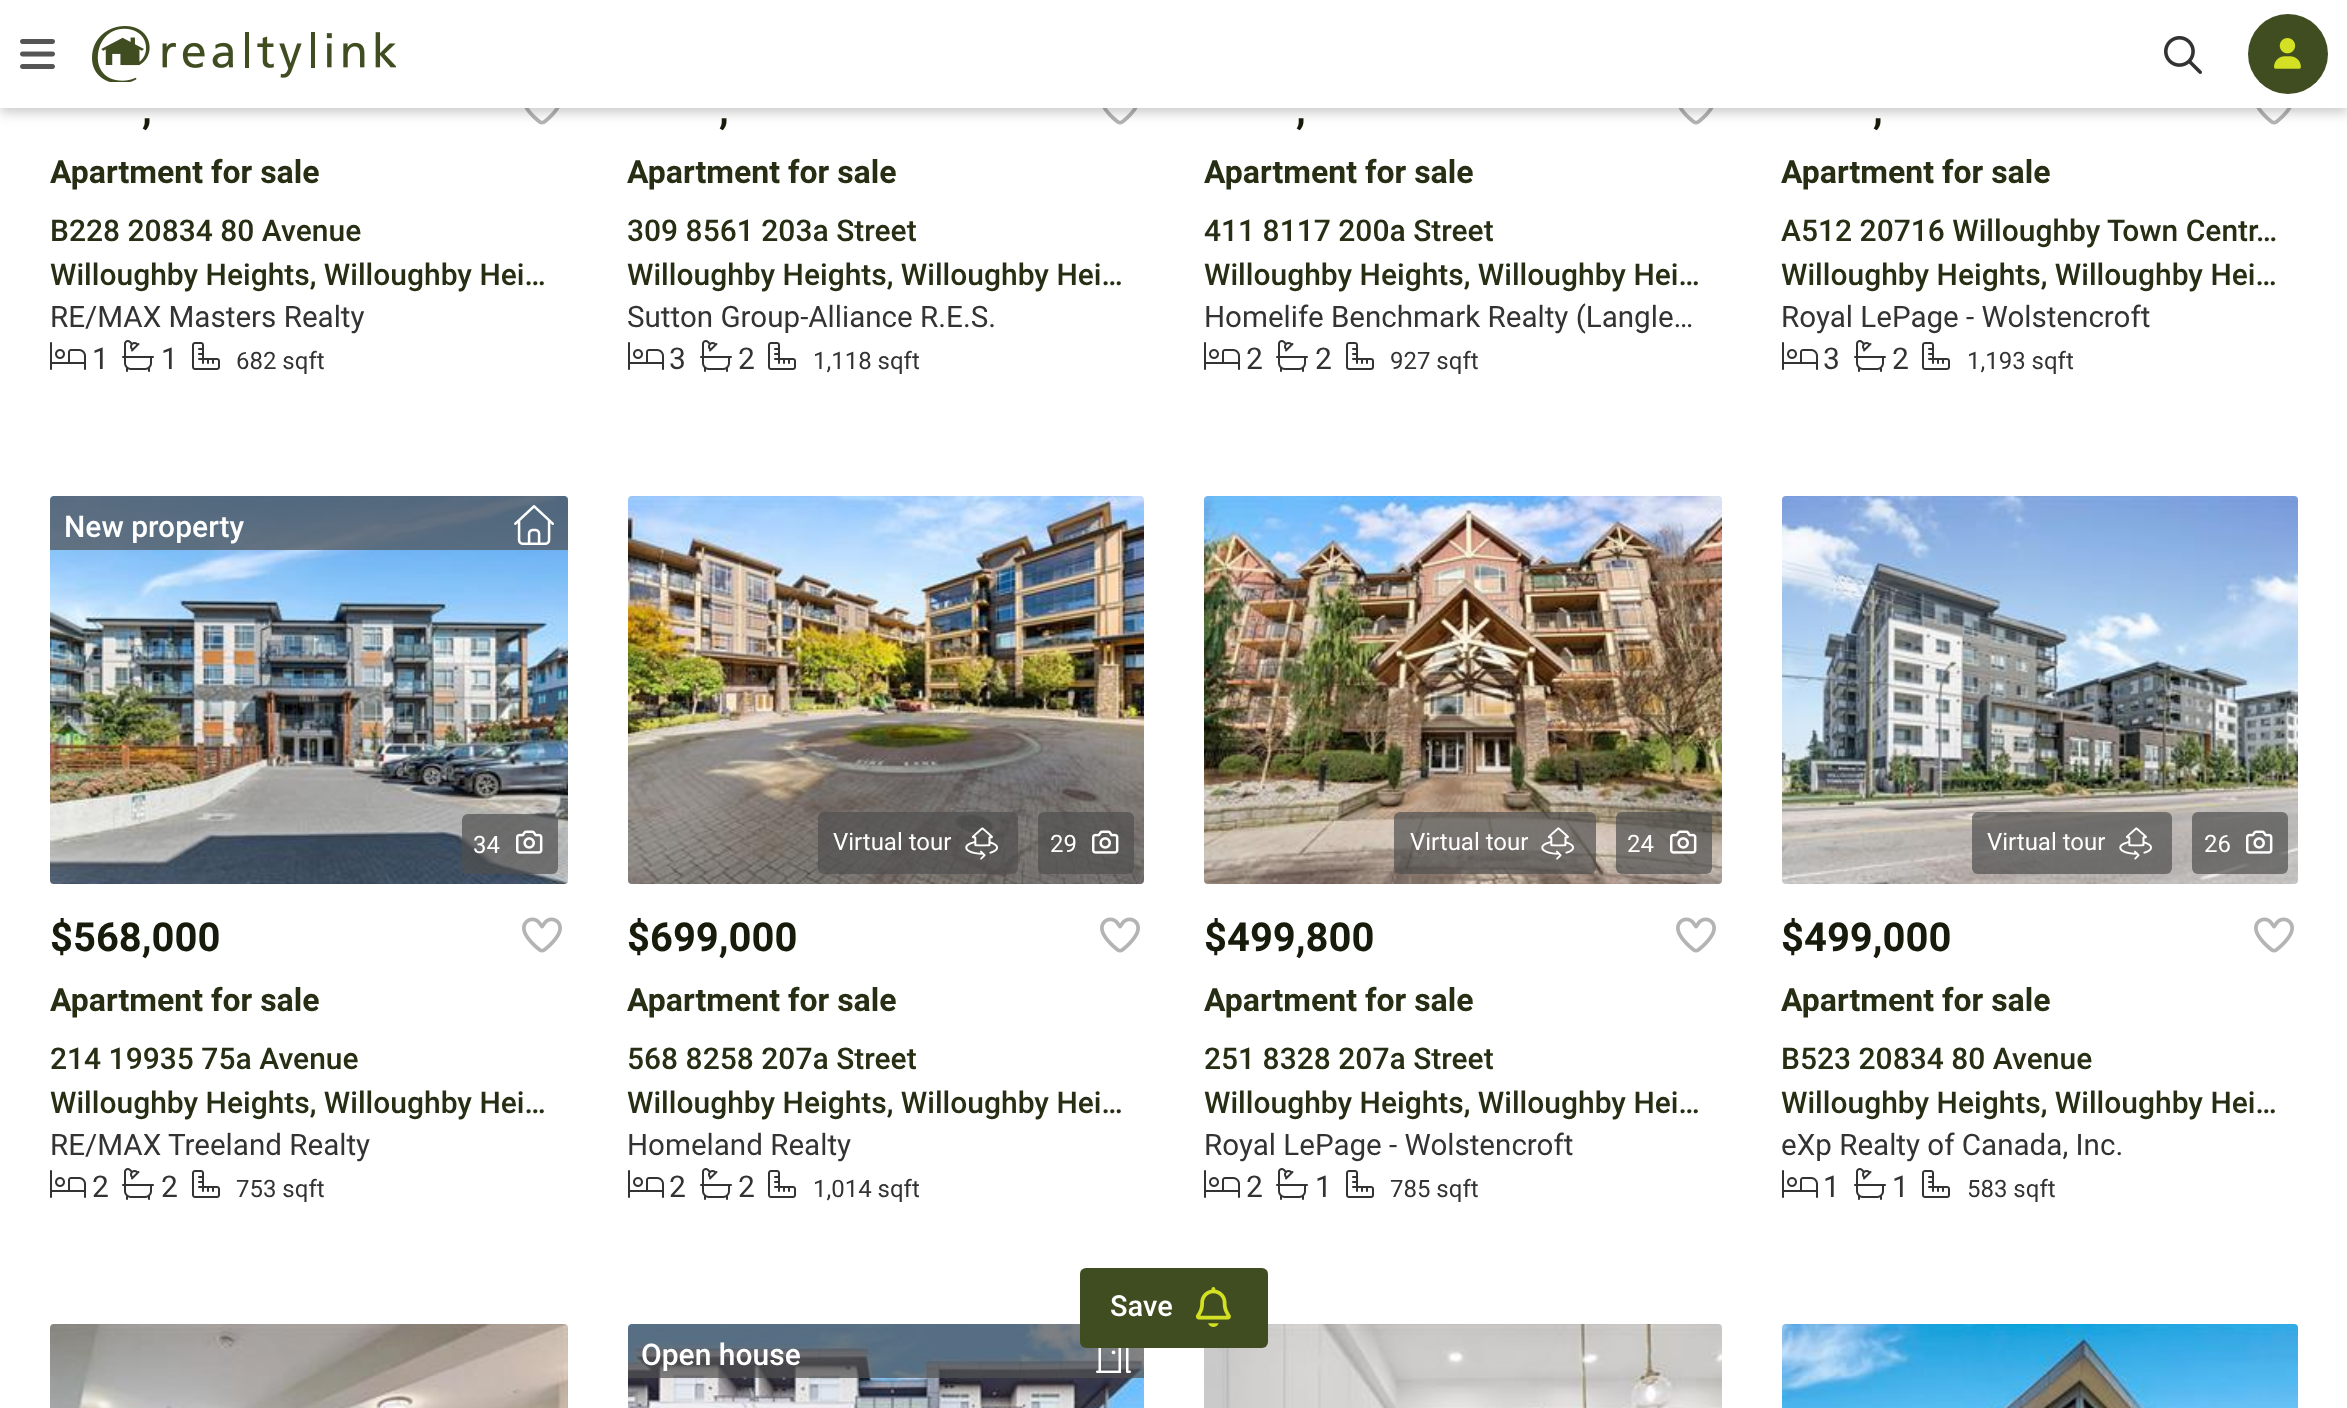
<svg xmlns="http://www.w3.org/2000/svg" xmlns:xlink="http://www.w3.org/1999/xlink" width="2347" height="1408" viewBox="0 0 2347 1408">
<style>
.cls-1{font:bold 40px Roboto;fill:#161b0c}
.cls-2{font:bold 32px Roboto;fill:#262e14}
.cls-3{font:500 30px Roboto;fill:#262e14}
.cls-4{font:29.6px Roboto;fill:#333333}
.cls-5{font:30px Roboto;fill:#333333}
.cls-6{font:24px Roboto;fill:#333333}
.cls-7{font:500 30px Roboto;fill:#ffffff}
.cls-8{font:24px Roboto;fill:#ffffff}
.cls-9{font:500 29px Roboto;fill:#ffffff}
</style>
<rect width="100%" height="100%" fill="#ffffff"/>
<image xlink:href="image4.png" x="524" y="108" width="36" height="17"/>
<image xlink:href="image4.png" x="1102" y="108" width="36" height="17"/>
<image xlink:href="image4.png" x="1678" y="108" width="36" height="17"/>
<image xlink:href="image4.png" x="2256" y="108" width="36" height="17"/>
<rect fill="#000000" fill-opacity="0.06" filter="blur(10px)" x="0" y="2" width="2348" height="108"/>
<rect fill="#000000" fill-opacity="0.07" filter="blur(5px)" x="0" y="8" width="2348" height="108"/>
<rect fill="#000000" fill-opacity="0.1" filter="blur(4px)" x="2" y="6" width="2344" height="104"/>
<rect fill="#ffffff" x="0" y="0" width="2347" height="108"/>
<image xlink:href="image0.png" x="20" y="39" width="35" height="30"/>
<image xlink:href="image1.png" x="92" y="26" width="304" height="56"/>
<image xlink:href="image2.png" x="2164" y="36" width="38" height="38"/>
<circle fill="#3f4d21" cx="2288" cy="54" r="40"/>
<image xlink:href="image3.png" x="2274" y="38" width="27" height="31"/>
<image xlink:href="image5.png" x="50" y="342" width="36" height="28"/>
<image xlink:href="image6.png" x="122" y="340" width="32" height="32"/>
<image xlink:href="image7.png" x="192" y="342" width="28" height="28"/>
<image xlink:href="image5.png" x="628" y="342" width="36" height="28"/>
<image xlink:href="image6.png" x="700" y="340" width="32" height="32"/>
<image xlink:href="image7.png" x="768" y="342" width="28" height="28"/>
<image xlink:href="image5.png" x="1204" y="342" width="36" height="28"/>
<image xlink:href="image6.png" x="1276" y="340" width="32" height="32"/>
<image xlink:href="image7.png" x="1346" y="342" width="28" height="28"/>
<image xlink:href="image5.png" x="1782" y="342" width="36" height="28"/>
<image xlink:href="image6.png" x="1854" y="340" width="32" height="32"/>
<image xlink:href="image7.png" x="1922" y="342" width="28" height="28"/>
<image xlink:href="image8.png" x="50" y="496" width="518" height="388"/>
<path fill="#505050" fill-opacity="0.7" d="M54 496H564C566 496 568 498 568 500V550H50V500C50 498 52 496 54 496Z"/>
<image xlink:href="image9.png" x="514" y="505" width="40" height="40"/>
<rect fill="#505050" fill-opacity="0.7" x="462" y="814" width="96" height="60" rx="6"/>
<image xlink:href="image10.png" x="516" y="830" width="27" height="24"/>
<image xlink:href="image11.png" x="522" y="917" width="40" height="36"/>
<image xlink:href="image5.png" x="50" y="1170" width="36" height="28"/>
<image xlink:href="image6.png" x="122" y="1168" width="32" height="32"/>
<image xlink:href="image7.png" x="192" y="1170" width="28" height="28"/>
<image xlink:href="image12.png" x="628" y="496" width="516" height="388"/>
<rect fill="#505050" fill-opacity="0.7" x="818" y="812" width="200" height="62" rx="6"/>
<image xlink:href="image13.png" x="965" y="827" width="33" height="33"/>
<rect fill="#505050" fill-opacity="0.7" x="1038" y="812" width="96" height="62" rx="6"/>
<image xlink:href="image14.png" x="1092" y="830" width="27" height="24"/>
<image xlink:href="image11.png" x="1100" y="917" width="40" height="36"/>
<image xlink:href="image5.png" x="628" y="1170" width="36" height="28"/>
<image xlink:href="image6.png" x="700" y="1168" width="32" height="32"/>
<image xlink:href="image7.png" x="768" y="1170" width="28" height="28"/>
<image xlink:href="image15.png" x="1204" y="496" width="518" height="388"/>
<rect fill="#505050" fill-opacity="0.7" x="1394" y="812" width="202" height="62" rx="6"/>
<image xlink:href="image16.png" x="1541" y="827" width="33" height="33"/>
<rect fill="#505050" fill-opacity="0.7" x="1616" y="812" width="96" height="62" rx="6"/>
<image xlink:href="image17.png" x="1670" y="830" width="27" height="24"/>
<image xlink:href="image11.png" x="1676" y="917" width="40" height="36"/>
<image xlink:href="image5.png" x="1204" y="1170" width="36" height="28"/>
<image xlink:href="image6.png" x="1276" y="1168" width="32" height="32"/>
<image xlink:href="image7.png" x="1346" y="1170" width="28" height="28"/>
<image xlink:href="image18.png" x="1782" y="496" width="516" height="388"/>
<rect fill="#505050" fill-opacity="0.7" x="1972" y="812" width="200" height="62" rx="6"/>
<image xlink:href="image19.png" x="2119" y="827" width="33" height="33"/>
<rect fill="#505050" fill-opacity="0.7" x="2192" y="812" width="96" height="62" rx="6"/>
<image xlink:href="image20.png" x="2246" y="830" width="27" height="24"/>
<image xlink:href="image11.png" x="2254" y="917" width="40" height="36"/>
<image xlink:href="image5.png" x="1782" y="1170" width="36" height="28"/>
<image xlink:href="image6.png" x="1854" y="1168" width="32" height="32"/>
<image xlink:href="image7.png" x="1922" y="1170" width="28" height="28"/>
<image xlink:href="image21.png" x="50" y="1324" width="518" height="84"/>
<image xlink:href="image22.png" x="628" y="1324" width="516" height="84"/>
<path fill="#505050" fill-opacity="0.7" d="M632 1324H1140C1142 1324 1144 1326 1144 1328V1378H628V1328C628 1326 630 1324 632 1324Z"/>
<image xlink:href="image23.png" x="1096" y="1348" width="35" height="25"/>
<image xlink:href="image24.png" x="1204" y="1324" width="518" height="84"/>
<image xlink:href="image25.png" x="1782" y="1324" width="516" height="84"/>
<rect fill="#3f4d21" x="1080" y="1268" width="188" height="80" rx="6"/>
<image xlink:href="image26.png" x="1195" y="1287" width="36" height="40"/>
<text class="cls-1" x="142" y="123">,</text>
<text class="cls-2" x="50" y="183">Apartment for sale</text>
<text class="cls-3"><tspan x="50" y="241">B228 20834 80 Avenue</tspan><tspan x="50" y="285">Willoughby Heights, Willoughby Hei…</tspan></text>
<text class="cls-4" x="50" y="327">RE/MAX Masters Realty</text>
<text class="cls-5" x="92" y="369">1</text>
<text class="cls-5" x="161" y="369">1</text>
<text class="cls-6" x="236" y="369">682 sqft</text>
<text class="cls-1" x="719" y="123">,</text>
<text class="cls-2" x="627" y="183">Apartment for sale</text>
<text class="cls-3"><tspan x="627" y="241">309 8561 203a Street</tspan><tspan x="627" y="285">Willoughby Heights, Willoughby Hei…</tspan></text>
<text class="cls-4" x="627" y="327">Sutton Group-Alliance R.E.S.</text>
<text class="cls-5" x="669" y="369">3</text>
<text class="cls-5" x="738" y="369">2</text>
<text class="cls-6" x="813" y="369">1,118 sqft</text>
<text class="cls-1" x="1296" y="123">,</text>
<text class="cls-2" x="1204" y="183">Apartment for sale</text>
<text class="cls-3"><tspan x="1204" y="241">411 8117 200a Street</tspan><tspan x="1204" y="285">Willoughby Heights, Willoughby Hei…</tspan></text>
<text class="cls-4" x="1204" y="327">Homelife Benchmark Realty (Langle…</text>
<text class="cls-5" x="1246" y="369">2</text>
<text class="cls-5" x="1315" y="369">2</text>
<text class="cls-6" x="1390" y="369">927 sqft</text>
<text class="cls-1" x="1873" y="123">,</text>
<text class="cls-2" x="1781" y="183">Apartment for sale</text>
<text class="cls-3"><tspan x="1781" y="241">A512 20716 Willoughby Town Centr…</tspan><tspan x="1781" y="285">Willoughby Heights, Willoughby Hei…</tspan></text>
<text class="cls-4" x="1781" y="327">Royal LePage - Wolstencroft</text>
<text class="cls-5" x="1823" y="369">3</text>
<text class="cls-5" x="1892" y="369">2</text>
<text class="cls-6" x="1967" y="369">1,193 sqft</text>
<text class="cls-7" x="64" y="537">New property</text>
<text class="cls-8" x="473" y="853">34</text>
<text class="cls-1" x="50" y="951">$568,000</text>
<text class="cls-2" x="50" y="1011">Apartment for sale</text>
<text class="cls-3"><tspan x="50" y="1069">214 19935 75a Avenue</tspan><tspan x="50" y="1113">Willoughby Heights, Willoughby Hei…</tspan></text>
<text class="cls-4" x="50" y="1155">RE/MAX Treeland Realty</text>
<text class="cls-5" x="92" y="1197">2</text>
<text class="cls-5" x="161" y="1197">2</text>
<text class="cls-6" x="236" y="1197">753 sqft</text>
<text class="cls-8" x="833" y="850">Virtual tour</text>
<text class="cls-8" x="1050" y="852">29</text>
<text class="cls-1" x="627" y="951">$699,000</text>
<text class="cls-2" x="627" y="1011">Apartment for sale</text>
<text class="cls-3"><tspan x="627" y="1069">568 8258 207a Street</tspan><tspan x="627" y="1113">Willoughby Heights, Willoughby Hei…</tspan></text>
<text class="cls-4" x="627" y="1155">Homeland Realty</text>
<text class="cls-5" x="669" y="1197">2</text>
<text class="cls-5" x="738" y="1197">2</text>
<text class="cls-6" x="813" y="1197">1,014 sqft</text>
<text class="cls-8" x="1410" y="850">Virtual tour</text>
<text class="cls-8" x="1627" y="852">24</text>
<text class="cls-1" x="1204" y="951">$499,800</text>
<text class="cls-2" x="1204" y="1011">Apartment for sale</text>
<text class="cls-3"><tspan x="1204" y="1069">251 8328 207a Street</tspan><tspan x="1204" y="1113">Willoughby Heights, Willoughby Hei…</tspan></text>
<text class="cls-4" x="1204" y="1155">Royal LePage - Wolstencroft</text>
<text class="cls-5" x="1246" y="1197">2</text>
<text class="cls-5" x="1315" y="1197">1</text>
<text class="cls-6" x="1390" y="1197">785 sqft</text>
<text class="cls-8" x="1987" y="850">Virtual tour</text>
<text class="cls-8" x="2204" y="852">26</text>
<text class="cls-1" x="1781" y="951">$499,000</text>
<text class="cls-2" x="1781" y="1011">Apartment for sale</text>
<text class="cls-3"><tspan x="1781" y="1069">B523 20834 80 Avenue</tspan><tspan x="1781" y="1113">Willoughby Heights, Willoughby Hei…</tspan></text>
<text class="cls-4" x="1781" y="1155">eXp Realty of Canada, Inc.</text>
<text class="cls-5" x="1823" y="1197">1</text>
<text class="cls-5" x="1892" y="1197">1</text>
<text class="cls-6" x="1967" y="1197">583 sqft</text>
<text class="cls-7" x="641" y="1365">Open house</text>
<text class="cls-9" x="1110" y="1316">Save</text>
</svg>
